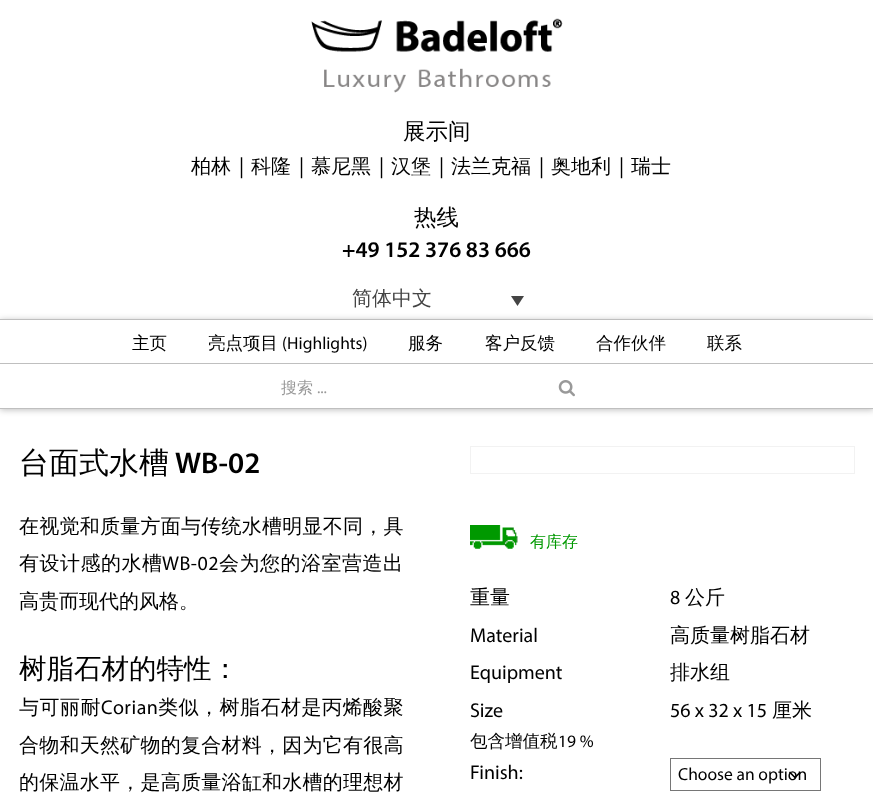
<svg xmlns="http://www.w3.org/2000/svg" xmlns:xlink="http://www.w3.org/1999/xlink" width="873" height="799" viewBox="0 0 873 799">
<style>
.cls-1{font:500 22.5px WenQuanYi Zen Hei;fill:#000000}
.cls-2{font:500 20px WenQuanYi Zen Hei;fill:#000000}
.cls-3{font:21px Myriad;fill:#000000}
.cls-4{font:600 22.5px Myriad;fill:#000000}
.cls-5{font:500 20px WenQuanYi Zen Hei;fill:#444444}
.cls-6{font:500 17.5px WenQuanYi Zen Hei;fill:#000000}
.cls-7{font:17.5px Myriad;fill:#000000}
.cls-8{font:500 16px WenQuanYi Zen Hei;fill:#999999}
.cls-9{font:16px Myriad;fill:#999999}
.cls-10{font:500 30px WenQuanYi Zen Hei;fill:#000000}
.cls-11{font:600 30px Myriad;fill:#000000}
.cls-12{font:500 20px WenQuanYi Zen Hei;letter-spacing:0.25px;fill:#000000}
.cls-13{font:500 20px WenQuanYi Zen Hei;letter-spacing:0.5px;fill:#000000}
.cls-14{font:20px Myriad;letter-spacing:0.5px;fill:#000000}
.cls-15{font:500 27.5px WenQuanYi Zen Hei;fill:#000000}
.cls-16{font:500 16px WenQuanYi Zen Hei;fill:#009900}
.cls-17{font:20px Myriad;fill:#000000}
</style>
<rect width="100%" height="100%" fill="#ffffff"/>
<image xlink:href="image0.png" x="311" y="18" width="252" height="75"/>
<path fill="#444444" d="M511 296H524L517.5 306Z"/>
<rect fill="#000000" fill-opacity="0.25" filter="blur(3px)" x="0" y="320" width="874" height="90"/>
<rect fill="#ffffff" x="0" y="320" width="873" height="88"/>
<rect fill="#bfbfbf" x="0" y="319" width="873" height="1"/>
<rect fill="#bfbfbf" x="0" y="408" width="873" height="1"/>
<rect fill="#bfbfbf" x="0" y="363" width="873" height="1"/>
<image xlink:href="image1.png" x="558" y="380" width="17" height="17"/>
<rect fill="none" stroke="#f2f2f2" x="470.5" y="446.5" width="384" height="27"/>
<image xlink:href="image2.png" x="470" y="525" width="48" height="24"/>
<path fill="none" stroke="#000000" stroke-width="1.7" stroke-linecap="round" stroke-linejoin="round" d="M790 772.5L795 777.5L800 772.5"/>
<rect fill="none" stroke="#767676" x="670.5" y="758.5" width="150" height="32"/>
<text class="cls-1" x="403" y="139">展示间</text>
<text class="cls-2" x="191" y="173">柏林</text>
<text class="cls-3" x="239" y="173">|</text>
<text class="cls-2" x="251" y="173">科隆</text>
<text class="cls-3" x="299" y="173">|</text>
<text class="cls-2" x="311" y="173">慕尼黑</text>
<text class="cls-3" x="379" y="173">|</text>
<text class="cls-2" x="391" y="173">汉堡</text>
<text class="cls-3" x="439" y="173">|</text>
<text class="cls-2" x="451" y="173">法兰克福</text>
<text class="cls-3" x="539" y="173">|</text>
<text class="cls-2" x="551" y="173">奥地利</text>
<text class="cls-3" x="619" y="173">|</text>
<text class="cls-2" x="631" y="173">瑞士</text>
<text class="cls-1" x="414" y="225">热线</text>
<text class="cls-4" x="342" y="257">+49 152 376 83 666</text>
<text class="cls-5" x="352" y="305">简体中文</text>
<text class="cls-6" x="132" y="349">主页</text>
<text class="cls-6" x="208" y="349">亮点项目</text>
<text class="cls-7" x="282" y="349">(Highlights)</text>
<text class="cls-6" x="408" y="349">服务</text>
<text class="cls-6" x="485" y="349">客户反馈</text>
<text class="cls-6" x="596" y="349">合作伙伴</text>
<text class="cls-6" x="707" y="349">联系</text>
<text class="cls-8" x="281" y="393">搜索</text>
<text class="cls-9" x="317" y="393">...</text>
<text class="cls-10" x="19" y="473">台面式水槽</text>
<text class="cls-11" x="175" y="473">WB-02</text>
<text class="cls-12" x="19" y="533">在视觉和质量方面与传统水槽明显不同，具</text>
<text class="cls-13" x="19" y="570">有设计感的水槽</text>
<text class="cls-14" x="162" y="570">WB-02</text>
<text class="cls-13" x="219" y="570">会为您的浴室营造出</text>
<text class="cls-2" x="19" y="608">高贵而现代的风格。</text>
<text class="cls-15" x="19" y="678">树脂石材的特性：</text>
<text class="cls-13" x="19" y="714">与可丽耐</text>
<text class="cls-14" x="101" y="714">Corian</text>
<text class="cls-13" x="158" y="714">类似，树脂石材是丙烯酸聚</text>
<text class="cls-12"><tspan x="19" y="752">合物和天然矿物的复合材料，因为它有很高</tspan><tspan x="19" y="789">的保温水平，是高质量浴缸和水槽的理想材</tspan></text>
<text class="cls-16" x="530" y="547">有库存</text>
<text class="cls-2" x="470" y="604">重量</text>
<text class="cls-17" x="670" y="604">8</text>
<text class="cls-2" x="685" y="604">公斤</text>
<text class="cls-17" x="470" y="642">Material</text>
<text class="cls-2" x="670" y="642">高质量树脂石材</text>
<text class="cls-17" x="470" y="679">Equipment</text>
<text class="cls-2" x="670" y="679">排水组</text>
<text class="cls-17" x="470" y="717">Size</text>
<text class="cls-17" x="670" y="717">56 x 32 x 15</text>
<text class="cls-2" x="772" y="717">厘米</text>
<text class="cls-6" x="470" y="747">包含增值税</text>
<text class="cls-7" x="558" y="747">19 %</text>
<text class="cls-17" x="470" y="779">Finish:</text>
<text class="cls-7" x="678" y="780">Choose an option</text>
</svg>
